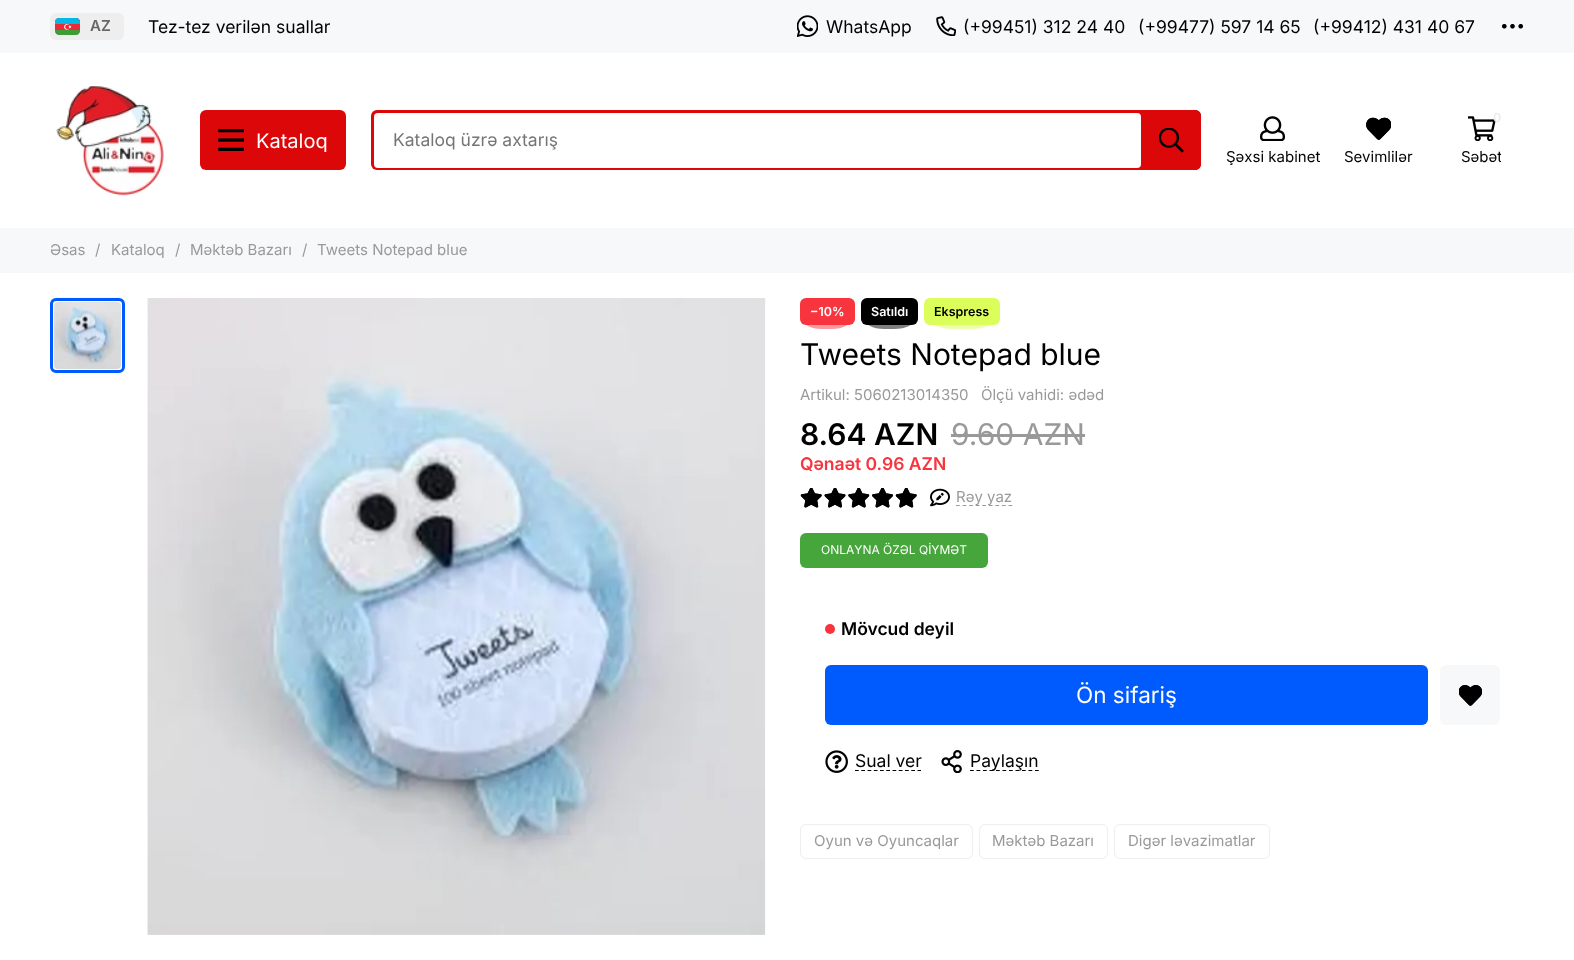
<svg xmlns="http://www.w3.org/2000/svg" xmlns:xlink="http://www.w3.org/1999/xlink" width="1574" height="960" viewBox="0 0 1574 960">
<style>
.cls-1{font:600 15px Inter;fill:#666666}
.cls-2{font:17.5px Inter;fill:#000000}
.cls-3{font:20px Inter;fill:#ffffff}
.cls-4{font:17.5px Inter;fill:#757575}
.cls-5{font:15px Inter;fill:#000000}
.cls-6{font:600 12.5px Inter;fill:#ececec}
.cls-7{font:15px Inter;fill:#999999}
.cls-8{font:600 12.5px Inter;fill:#ffffff}
.cls-9{font:600 12.5px Inter;fill:#000000}
.cls-10{font:30px Inter;fill:#000000}
.cls-11{font:600 30px Inter;fill:#000000}
.cls-12{font:30px Inter;fill:#999999}
.cls-13{font:600 17.5px Inter;fill:#f8353e}
.cls-14{font:12px Inter;fill:#ffffff}
.cls-15{font:600 17.5px Inter;fill:#000000}
.cls-16{font:22.5px Inter;fill:#ffffff}
</style>
<defs>
<clipPath id="clip1"><rect x="1461" y="148" width="40" height="20"/></clipPath>
</defs>
<rect width="100%" height="100%" fill="#ffffff"/>
<rect fill="#f7f8fa" x="0" y="0" width="1574" height="53"/>
<rect fill="#eeeeee" x="50" y="13" width="74" height="27" rx="6"/>
<image xlink:href="image0.png" x="55" y="18" width="25" height="17"/>
<image xlink:href="image1.png" x="797" y="15" width="21" height="22"/>
<image xlink:href="image2.png" x="936" y="16" width="20" height="20"/>
<image xlink:href="image3.png" x="1502" y="23" width="21" height="6"/>
<image xlink:href="image4.png" x="56" y="86" width="108" height="110"/>
<rect fill="#dc0708" x="200" y="110" width="146" height="60" rx="6"/>
<image xlink:href="image5.png" x="218" y="129" width="26" height="22"/>
<rect fill="#dc0708" x="371" y="110" width="830" height="60" rx="6"/>
<rect fill="#ffffff" x="374" y="113" width="767" height="55" rx="4"/>
<path fill="#dc0708" d="M1141 110H1195C1198.5 110 1201 112.5 1201 116V164C1201 167.5 1198.5 170 1195 170H1141Z"/>
<image xlink:href="image6.png" x="1159" y="128" width="25" height="25"/>
<image xlink:href="image7.png" x="1260" y="116" width="25" height="25"/>
<image xlink:href="image8.png" x="1366" y="117" width="25" height="23"/>
<image xlink:href="image9.png" x="1468" y="116" width="28" height="25"/>
<rect fill="#f7f8fa" x="0" y="228" width="1574" height="45"/>
<image xlink:href="image10.png" x="51" y="297" width="73" height="76"/>
<rect fill="none" stroke="#ffffff" stroke-width="4" x="52" y="300" width="71" height="71" rx="6"/>
<rect fill="none" stroke="#005bff" stroke-width="3" x="51.5" y="299.5" width="72" height="72" rx="4.5"/>
<image xlink:href="image11.png" x="147" y="298" width="619" height="637"/>
<rect fill="#f8353e" x="800" y="298" width="55" height="27" rx="6"/>
<path fill="#f8353e" fill-opacity="0.5" d="M822 304H832C843 304 851 308 851 314V319C851 324 843 329 832 329H822C811 329 802 324 802 319V314C802 308 811 304 822 304Z"/>
<rect fill="#000000" x="861" y="298" width="57" height="27" rx="6"/>
<path fill="#000000" fill-opacity="0.5" d="M884 304H894C906 304 915 308 915 314V319C915 324 906 329 894 329H884C873 329 864 324 864 319V314C864 308 873 304 884 304Z"/>
<rect fill="#dcfe5b" x="924" y="298" width="76" height="27" rx="6"/>
<path fill="#dcfe5b" fill-opacity="0.5" d="M955 304H969C984 304 996 308 996 314V319C996 324 984 329 969 329H955C940 329 928 324 928 319V314C928 308 940 304 955 304Z"/>
<rect fill="#999999" x="951" y="434" width="134" height="3"/>
<image xlink:href="image12.png" x="800" y="488" width="22" height="20"/>
<image xlink:href="image13.png" x="824" y="488" width="22" height="20"/>
<image xlink:href="image14.png" x="848" y="488" width="22" height="20"/>
<image xlink:href="image15.png" x="872" y="488" width="21" height="20"/>
<image xlink:href="image12.png" x="895" y="488" width="22" height="20"/>
<image xlink:href="image16.png" x="930" y="488" width="20" height="19"/>
<path fill="none" stroke="#999999" stroke-width="1.2" stroke-dasharray="3.75 2.81" d="M956 505.5H1012.5"/>
<rect fill="#46a53b" x="800" y="533" width="188" height="35" rx="6"/>
<circle fill="#f8353e" cx="830" cy="629" r="5"/>
<rect fill="#005bff" x="825" y="665" width="603" height="60" rx="6"/>
<rect fill="#f7f8fa" x="1440" y="665" width="60" height="60" rx="6"/>
<image xlink:href="image17.png" x="1459" y="685" width="23" height="21"/>
<image xlink:href="image18.png" x="825" y="750" width="23" height="23"/>
<path fill="none" stroke="#000000" stroke-width="1.2" stroke-dasharray="3.75 2.5" d="M855 770.5H921"/>
<image xlink:href="image19.png" x="941" y="750" width="21" height="23"/>
<path fill="none" stroke="#000000" stroke-width="1.2" stroke-dasharray="3.75 2.75" d="M970 770.5H1039"/>
<rect fill="none" stroke="#eeeeee" x="800.5" y="824.5" width="172" height="34" rx="5.5"/>
<rect fill="none" stroke="#eeeeee" x="979.5" y="824.5" width="128" height="34" rx="5.5"/>
<rect fill="none" stroke="#eeeeee" x="1114.5" y="824.5" width="155" height="34" rx="5.5"/>
<text class="cls-1" x="90" y="31">AZ</text>
<text class="cls-2" x="148" y="33">Tez-tez verilən suallar</text>
<text class="cls-2" x="826" y="33">WhatsApp</text>
<text class="cls-2" x="963" y="33">(+99451) 312 24 40</text>
<text class="cls-2" x="1138" y="33">(+99477) 597 14 65</text>
<text class="cls-2" x="1313" y="33">(+99412) 431 40 67</text>
<text class="cls-3" x="256" y="148">Kataloq</text>
<text class="cls-4" x="393" y="146">Kataloq üzrə axtarış</text>
<text class="cls-5" x="1226" y="162">Şəxsi kabinet</text>
<text class="cls-5" x="1344" y="162">Sevimlilər</text>
<text class="cls-6" x="1493" y="122">0</text>
<g clip-path="url(#clip1)">
<text class="cls-5" x="1461" y="162">Səbət</text>
</g>
<text class="cls-7" x="50" y="255">Əsas</text>
<text class="cls-7" x="95" y="255">/</text>
<text class="cls-7" x="111" y="255">Kataloq</text>
<text class="cls-7" x="175" y="255">/</text>
<text class="cls-7" x="190" y="255">Məktəb Bazarı</text>
<text class="cls-7" x="302" y="255">/</text>
<text class="cls-7" x="317" y="255">Tweets Notepad blue</text>
<text class="cls-8" x="810" y="316">−10%</text>
<text class="cls-8" x="871" y="316">Satıldı</text>
<text class="cls-9" x="934" y="316">Ekspress</text>
<text class="cls-10" x="800" y="365">Tweets Notepad blue</text>
<text class="cls-7" x="800" y="400">Artikul: 5060213014350</text>
<text class="cls-7" x="981" y="400">Ölçü vahidi: ədəd</text>
<text class="cls-11" x="800" y="445">8.64 AZN</text>
<text class="cls-12" x="951" y="445">9.60 AZN</text>
<text class="cls-13" x="800" y="470">Qənaət 0.96 AZN</text>
<text class="cls-7" x="956" y="502">Rəy yaz</text>
<text class="cls-14" x="821" y="554">ONLAYNA ÖZƏL QİYMƏT</text>
<text class="cls-15" x="841" y="635">Mövcud deyil</text>
<text class="cls-16" x="1076" y="703">Ön sifariş</text>
<text class="cls-2" x="855" y="767">Sual ver</text>
<text class="cls-2" x="970" y="767">Paylaşın</text>
<text class="cls-7" x="814" y="846">Oyun və Oyuncaqlar</text>
<text class="cls-7" x="992" y="846">Məktəb Bazarı</text>
<text class="cls-7" x="1128" y="846">Digər ləvazimatlar</text>
</svg>
